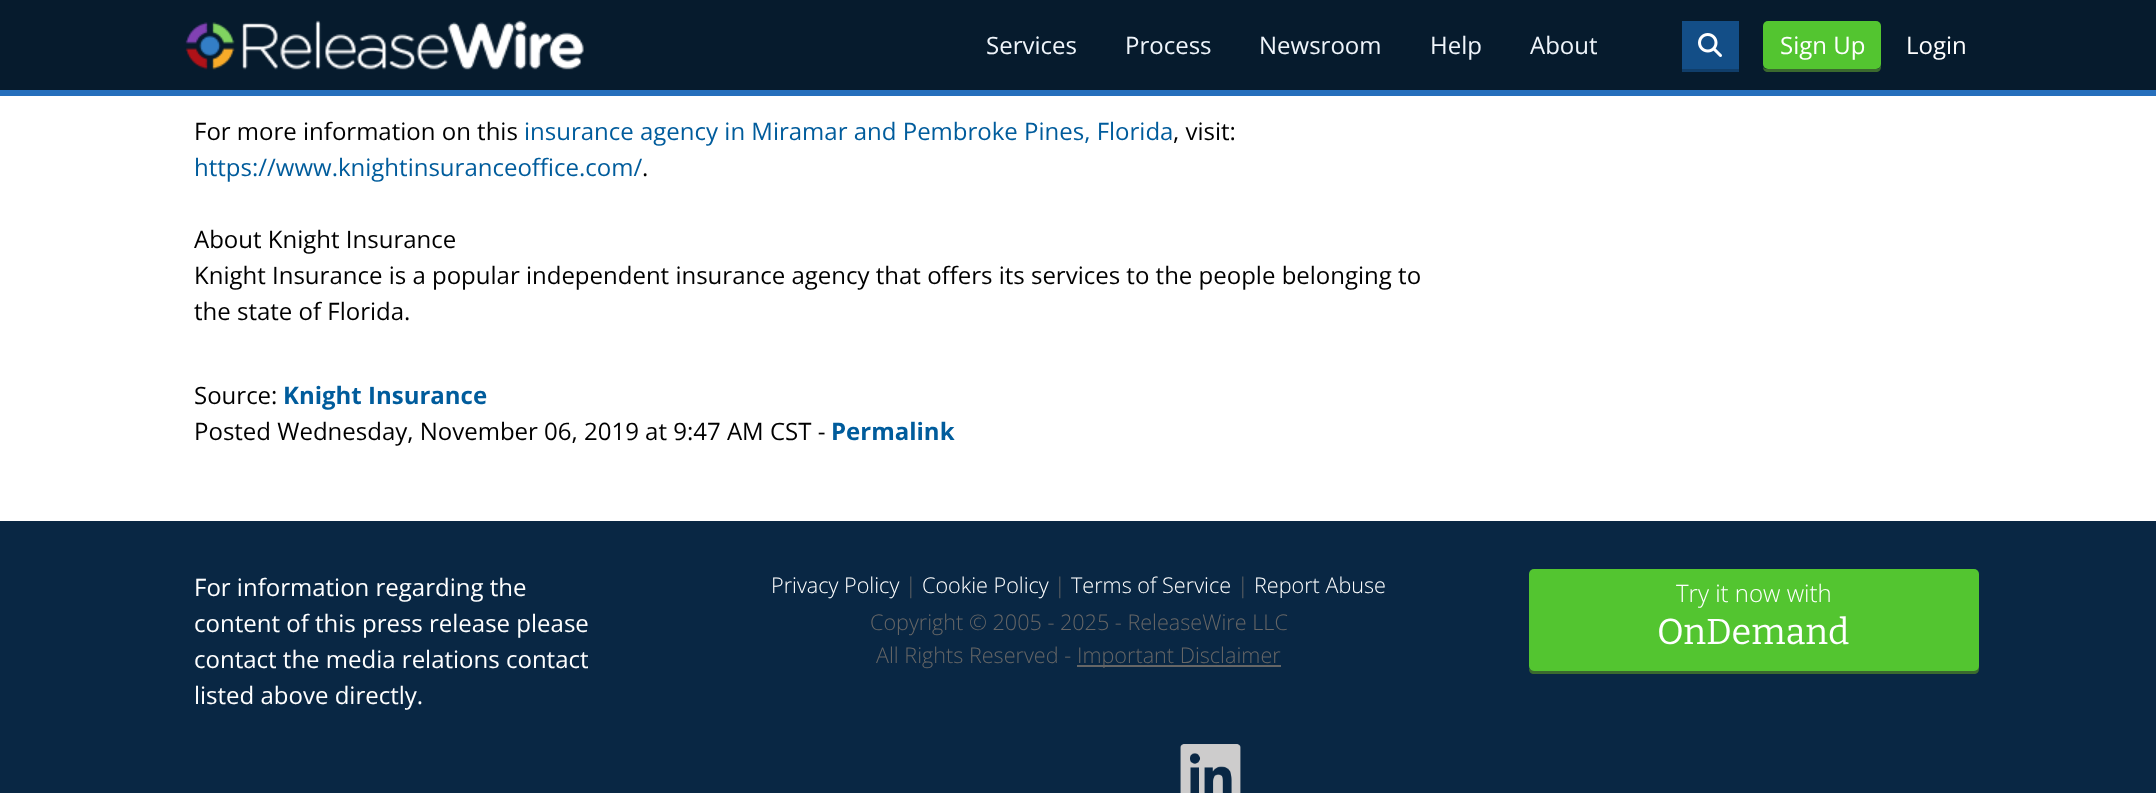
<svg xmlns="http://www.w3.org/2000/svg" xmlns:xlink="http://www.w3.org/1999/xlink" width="2156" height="793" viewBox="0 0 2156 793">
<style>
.cls-1{font:24px Open Sans;fill:#eff5fb}
.cls-2{font:24px Open Sans;fill:#ffffff}
.cls-3{font:24px Open Sans;fill:#000000}
.cls-4{font:24px Open Sans;fill:#005c9c}
.cls-5{font:bold 24px Open Sans;fill:#005c9c}
.cls-6{font:300 21.6px Open Sans;fill:#ffffff}
.cls-7{font:300 21.6px Open Sans;fill:#666666}
.cls-8{font:300 24px Open Sans;fill:#ffffff}
.cls-9{font:36px Bitter;fill:#ffffff}
</style>
<rect width="100%" height="100%" fill="#ffffff"/>
<rect fill="#061b2d" x="0" y="0" width="2156" height="90"/>
<rect fill="#266fbc" x="0" y="90" width="2156" height="6"/>
<image xlink:href="image0.png" x="185" y="20" width="399" height="50"/>
<path fill="#103e6a" d="M1682 69V72H1739V24H1738V69Z"/>
<rect fill="#134e87" x="1682" y="21" width="57" height="48"/>
<image xlink:href="image1.png" x="1698" y="33" width="24" height="24"/>
<path fill="#3b6a2e" d="M1763 67C1763 70 1765 72 1768 72H1876C1879 72 1881 70 1881 67V64C1881 67 1879 69 1876 69H1767C1765 69 1764 68 1763 67Z"/>
<rect fill="#53c530" x="1763" y="21" width="118" height="48" rx="5"/>
<rect fill="#092744" x="0" y="521" width="2156" height="272"/>
<rect fill="#666666" x="1077" y="665" width="204" height="2"/>
<image xlink:href="image2.png" x="1180" y="744" width="61" height="49"/>
<path fill="#3b6a2e" d="M1529 668V669C1529 672 1531 674 1534 674H1974C1977 674 1979 672 1979 669V577L1978 575V666C1978 668 1976 670 1974 670H1533C1531 670 1530 670 1529 668Z"/>
<rect fill="#53c530" x="1529" y="569" width="450" height="102" rx="5"/>
<text class="cls-1" x="986" y="54">Services</text>
<text class="cls-1" x="1125" y="54">Process</text>
<text class="cls-1" x="1259" y="54">Newsroom</text>
<text class="cls-1" x="1430" y="54">Help</text>
<text class="cls-1" x="1530" y="54">About</text>
<text class="cls-2" x="1780" y="54">Sign Up</text>
<text class="cls-2" x="1906" y="54">Login</text>
<text class="cls-3" x="194" y="140">For more information on this</text>
<text class="cls-4" x="524" y="140">insurance agency in Miramar and Pembroke Pines, Florida</text>
<text class="cls-3" x="1173" y="140">, visit:</text>
<text class="cls-4" x="194" y="176">https://www.knightinsuranceoffice.com/</text>
<text class="cls-3" x="642" y="176">.</text>
<text class="cls-3"><tspan x="194" y="248">About Knight Insurance</tspan><tspan x="194" y="284">Knight Insurance is a popular independent insurance agency that offers its services to the people belonging to</tspan><tspan x="194" y="320">the state of Florida.</tspan></text>
<text class="cls-3" x="194" y="404">Source:</text>
<text class="cls-5" x="283" y="404">Knight Insurance</text>
<text class="cls-3" x="194" y="440">Posted Wednesday, November 06, 2019 at 9:47 AM CST -</text>
<text class="cls-5" x="831" y="440">Permalink</text>
<text class="cls-2"><tspan x="194" y="596">For information regarding the</tspan><tspan x="194" y="632">content of this press release please</tspan><tspan x="194" y="668">contact the media relations contact</tspan><tspan x="194" y="704">listed above directly.</tspan></text>
<text class="cls-6" x="771" y="593">Privacy Policy</text>
<text class="cls-7" x="905" y="593">|</text>
<text class="cls-6" x="922" y="593">Cookie Policy</text>
<text class="cls-7" x="1054" y="593">|</text>
<text class="cls-6" x="1071" y="593">Terms of Service</text>
<text class="cls-7" x="1237" y="593">|</text>
<text class="cls-6" x="1254" y="593">Report Abuse</text>
<text class="cls-7" x="870" y="630">Copyright © 2005 - 2025 - ReleaseWire LLC</text>
<text class="cls-7" x="876" y="663">All Rights Reserved -</text>
<text class="cls-7" x="1077" y="663">Important Disclaimer</text>
<text class="cls-8" x="1676" y="602">Try it now with</text>
<text class="cls-9" x="1657" y="644">OnDemand</text>
</svg>
